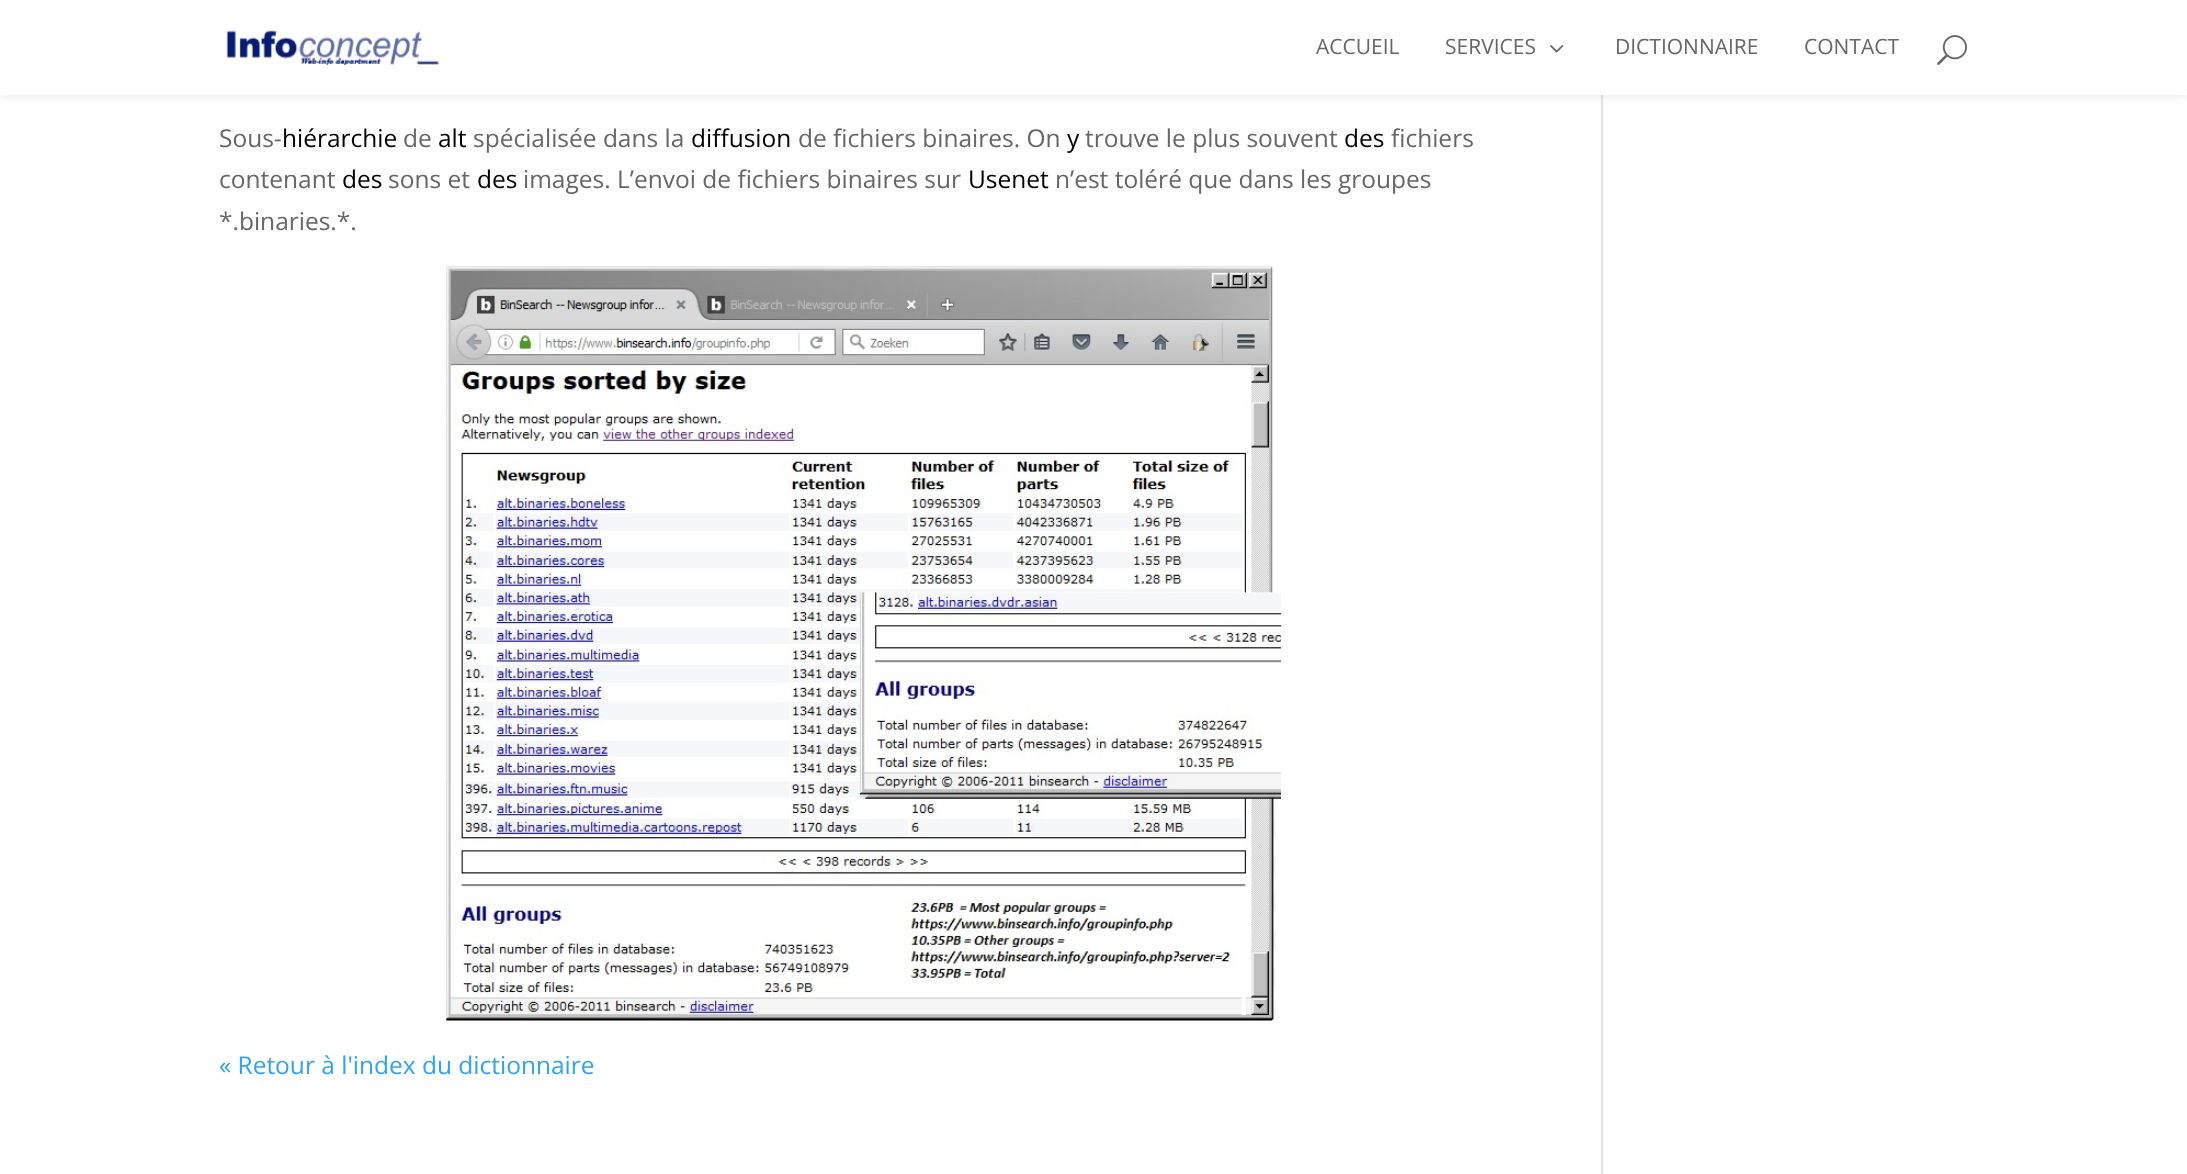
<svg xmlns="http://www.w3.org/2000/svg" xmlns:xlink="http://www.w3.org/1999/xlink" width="2187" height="1174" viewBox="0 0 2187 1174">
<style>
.cls-1{font:21px Open Sans;fill:#666666}
.cls-2{font:24.5px Open Sans;fill:#666666}
.cls-3{font:24.5px Open Sans;fill:#000000}
.cls-4{font:24.5px Open Sans;fill:#2ea3f2}
</style>
<rect width="100%" height="100%" fill="#ffffff"/>
<rect fill="#e2e2e2" x="1601" y="95" width="2" height="1079"/>
<rect fill="#000000" fill-opacity="0.1" filter="blur(6px)" x="0" y="0" width="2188" height="95"/>
<rect fill="#ffffff" x="0" y="0" width="2187" height="95"/>
<image xlink:href="image0.png" x="226" y="30" width="213" height="35"/>
<image xlink:href="image1.png" x="1550" y="45" width="14" height="8"/>
<image xlink:href="image2.png" x="1937" y="35" width="30" height="30"/>
<image xlink:href="image3.png" x="446" y="266" width="835" height="755"/>
<text class="cls-1" x="1316" y="54">ACCUEIL</text>
<text class="cls-1" x="1445" y="54">SERVICES</text>
<text class="cls-1" x="1615" y="54">DICTIONNAIRE</text>
<text class="cls-1" x="1804" y="54">CONTACT</text>
<text class="cls-2" x="219" y="147">Sous-</text>
<text class="cls-3" x="282" y="147">hiérarchie</text>
<text class="cls-2" x="403" y="147">de</text>
<text class="cls-3" x="438" y="147">alt</text>
<text class="cls-2" x="473" y="147">spécialisée dans la</text>
<text class="cls-3" x="691" y="147">diffusion</text>
<text class="cls-2" x="798" y="147">de fichiers binaires. On</text>
<text class="cls-3" x="1067" y="147">y</text>
<text class="cls-2" x="1085" y="147">trouve le plus souvent</text>
<text class="cls-3" x="1344" y="147">des</text>
<text class="cls-2" x="1391" y="147">fichiers</text>
<text class="cls-2" x="219" y="188">contenant</text>
<text class="cls-3" x="342" y="188">des</text>
<text class="cls-2" x="388" y="188">sons et</text>
<text class="cls-3" x="477" y="188">des</text>
<text class="cls-2" x="523" y="188">images. L’envoi de fichiers binaires sur</text>
<text class="cls-3" x="968" y="188">Usenet</text>
<text class="cls-2" x="1055" y="188">n’est toléré que dans les groupes</text>
<text class="cls-2" x="219" y="230">*.binaries.*.</text>
<text class="cls-4" x="219" y="1074">« Retour à l'index du dictionnaire</text>
</svg>
